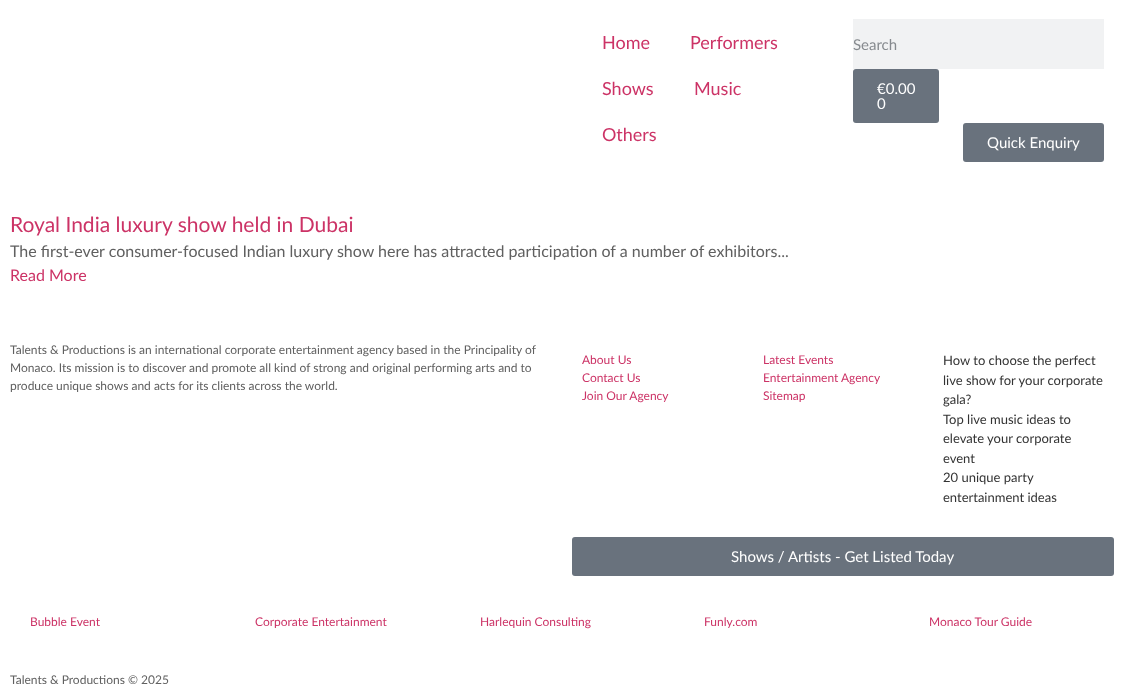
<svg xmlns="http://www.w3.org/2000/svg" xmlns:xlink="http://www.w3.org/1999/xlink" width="1124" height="687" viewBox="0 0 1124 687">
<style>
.cls-1{font:18px Lato;fill:#cc3366}
.cls-2{font:15px Lato;fill:#868a8e}
.cls-3{font:15px Lato;fill:#ffffff}
.cls-4{font:21px Lato;fill:#cc3366}
.cls-5{font:16px Lato;fill:#606060}
.cls-6{font:16px Lato;fill:#cc3366}
.cls-7{font:12px Lato;fill:#606060}
.cls-8{font:12px Lato;fill:#cc3366}
.cls-9{font:13px Lato;fill:#333333}
</style>
<rect width="100%" height="100%" fill="#ffffff"/>
<rect fill="#f1f2f3" x="853" y="19" width="251" height="50"/>
<rect fill="#69727d" x="853" y="69" width="86" height="54" rx="3"/>
<rect fill="#69727d" x="963" y="123" width="141" height="39" rx="3"/>
<rect fill="#69727d" x="572" y="537" width="542" height="39" rx="3"/>
<text class="cls-1" x="602" y="49">Home</text>
<text class="cls-1" x="690" y="49">Performers</text>
<text class="cls-1" x="602" y="95">Shows</text>
<text class="cls-1" x="694" y="95">Music</text>
<text class="cls-1" x="602" y="141">Others</text>
<text class="cls-2" x="853" y="50">Search</text>
<text class="cls-3"><tspan x="877" y="94">€0.00</tspan><tspan x="877" y="109">0</tspan></text>
<text class="cls-3" x="987" y="148">Quick Enquiry</text>
<text class="cls-4" x="10" y="232">Royal India luxury show held in Dubai</text>
<text class="cls-5" x="10" y="257">The first-ever consumer-focused Indian luxury show here has attracted participation of a number of exhibitors...</text>
<text class="cls-6" x="10" y="281">Read More</text>
<text class="cls-7"><tspan x="10" y="354">Talents &amp; Productions is an international corporate entertainment agency based in the Principality of</tspan><tspan x="10" y="372">Monaco. Its mission is to discover and promote all kind of strong and original performing arts and to</tspan><tspan x="10" y="390">produce unique shows and acts for its clients across the world.</tspan></text>
<text class="cls-8"><tspan x="582" y="364">About Us</tspan><tspan x="582" y="382">Contact Us</tspan><tspan x="582" y="400">Join Our Agency</tspan></text>
<text class="cls-8"><tspan x="763" y="364">Latest Events</tspan><tspan x="763" y="382">Entertainment Agency</tspan><tspan x="763" y="400">Sitemap</tspan></text>
<text class="cls-9"><tspan x="943" y="365">How to choose the perfect</tspan><tspan x="943" y="385">live show for your corporate</tspan><tspan x="943" y="404">gala?</tspan><tspan x="943" y="424">Top live music ideas to</tspan><tspan x="943" y="443">elevate your corporate</tspan><tspan x="943" y="463">event</tspan><tspan x="943" y="482">20 unique party</tspan><tspan x="943" y="502">entertainment ideas</tspan></text>
<text class="cls-3" x="731" y="562">Shows / Artists - Get Listed Today</text>
<text class="cls-8" x="30" y="626">Bubble Event</text>
<text class="cls-8" x="255" y="626">Corporate Entertainment</text>
<text class="cls-8" x="480" y="626">Harlequin Consulting</text>
<text class="cls-8" x="704" y="626">Funly.com</text>
<text class="cls-8" x="929" y="626">Monaco Tour Guide</text>
<text class="cls-7" x="10" y="684">Talents &amp; Productions © 2025</text>
</svg>
